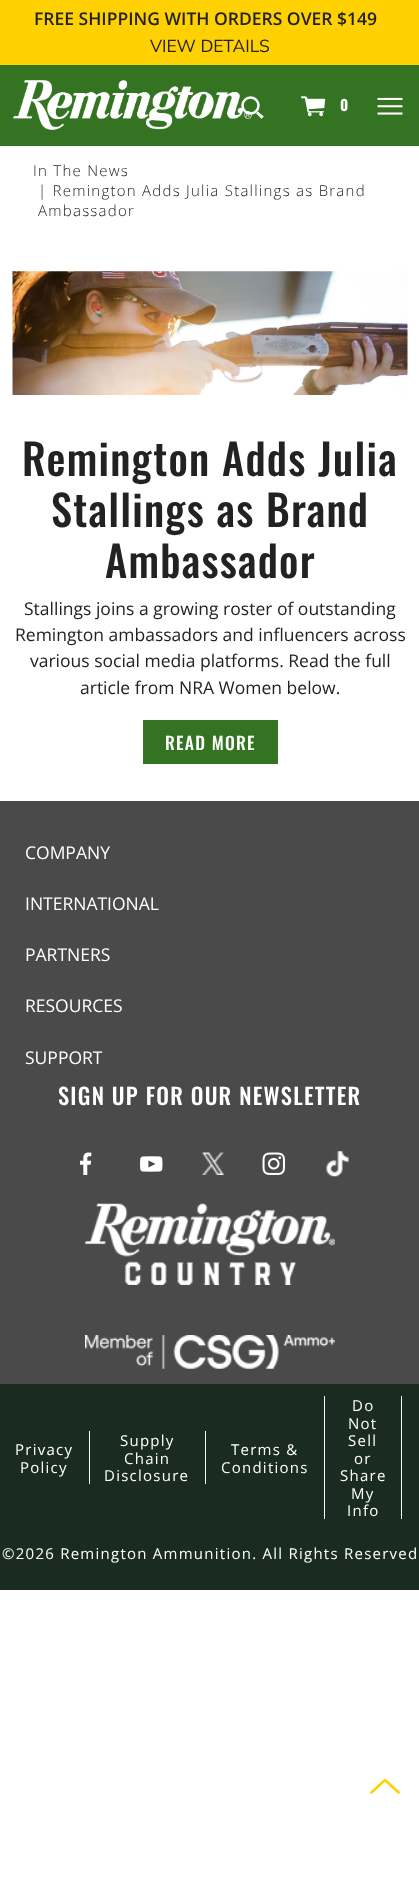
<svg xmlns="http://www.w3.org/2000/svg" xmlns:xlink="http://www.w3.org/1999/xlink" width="419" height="1896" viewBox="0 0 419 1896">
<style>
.cls-1{font:600 17.5px Open Sans;fill:#222222}
.cls-2{font:17.5px Nunito Sans;fill:#222222}
.cls-3{font:bold 15px Oswald;letter-spacing:2px;fill:#ffffff}
.cls-4{font:300 15px Open Sans;letter-spacing:1.25px;fill:#222222}
.cls-5{font:500 42.5px Oswald;letter-spacing:1.25px;fill:#222222}
.cls-6{font:17.5px Open Sans;fill:#222222}
.cls-7{font:500 17.5px Oswald;letter-spacing:1.25px;fill:#ffffff}
.cls-8{font:17.5px Open Sans;fill:#ffffff}
.cls-9{font:500 22.5px Oswald;letter-spacing:1.25px;fill:#ffffff}
.cls-10{font:15px Open Sans;letter-spacing:1.25px;fill:#ffffff}
</style>
<rect width="100%" height="100%" fill="#ffffff"/>
<rect fill="#ffd100" x="0" y="0" width="419" height="65"/>
<rect fill="#337321" x="0" y="65" width="419" height="81"/>
<image xlink:href="image0.png" x="13" y="80" width="239" height="50"/>
<circle fill="none" stroke="#ffffff" stroke-width="2.5" cx="250.5" cy="105.5" r="8"/>
<path fill="none" stroke="#ffffff" stroke-width="2.5" d="M257 112.5L262 116.5L261.5 117Z"/>
<image xlink:href="image1.png" x="301" y="96" width="25" height="21"/>
<image xlink:href="image2.png" x="377" y="97" width="26" height="18"/>
<image xlink:href="image3.png" x="12" y="271" width="396" height="124"/>
<rect fill="#337321" x="143" y="720" width="135" height="44"/>
<rect fill="#4a4a4a" x="0" y="801" width="419" height="583"/>
<image xlink:href="image4.png" x="80" y="1152" width="12" height="23"/>
<image xlink:href="image5.png" x="140" y="1156" width="23" height="16"/>
<image xlink:href="image6.png" x="202" y="1152" width="22" height="23"/>
<image xlink:href="image7.png" x="262" y="1152" width="23" height="23"/>
<image xlink:href="image8.png" x="326" y="1151" width="23" height="26"/>
<image xlink:href="image9.png" x="85" y="1203" width="250" height="82"/>
<image xlink:href="image10.png" x="85" y="1335" width="250" height="34"/>
<image xlink:href="image11.png" x="370" y="1778" width="30" height="16"/>
<rect fill="#1a2c22" x="0" y="1384" width="419" height="206"/>
<rect fill="#ffffff" x="205" y="1431" width="1" height="53"/>
<rect fill="#ffffff" x="89" y="1431" width="1" height="53"/>
<rect fill="#ffffff" x="401" y="1396" width="1" height="123"/>
<rect fill="#ffffff" x="324" y="1396" width="1" height="123"/>
<text class="cls-1" x="34" y="25">FREE SHIPPING WITH ORDERS OVER $149</text>
<text class="cls-2" x="150" y="52">VIEW DETAILS</text>
<text class="cls-3" x="340" y="111">0</text>
<text class="cls-4" x="33" y="176">In The News</text>
<text class="cls-4"><tspan x="38" y="196">| Remington Adds Julia Stallings as Brand</tspan><tspan x="38" y="216">Ambassador</tspan></text>
<text class="cls-5" x="22" y="476">Remington Adds Julia</text>
<text class="cls-5" x="51" y="527">Stallings as Brand</text>
<text class="cls-5" x="105" y="578">Ambassador</text>
<text class="cls-6" x="24" y="615">Stallings joins a growing roster of outstanding</text>
<text class="cls-6" x="15" y="641">Remington ambassadors and influencers across</text>
<text class="cls-6" x="30" y="667">various social media platforms. Read the full</text>
<text class="cls-6" x="80" y="694">article from NRA Women below.</text>
<text class="cls-7" x="165" y="750">READ MORE</text>
<text class="cls-8" x="25" y="859">COMPANY</text>
<text class="cls-8" x="25" y="910">INTERNATIONAL</text>
<text class="cls-8" x="25" y="961">PARTNERS</text>
<text class="cls-8" x="25" y="1012">RESOURCES</text>
<text class="cls-8" x="25" y="1064">SUPPORT</text>
<text class="cls-9" x="58" y="1105">SIGN UP FOR OUR NEWSLETTER</text>
<text class="cls-10" x="15" y="1455">Privacy</text>
<text class="cls-10" x="20" y="1473">Policy</text>
<text class="cls-10" x="120" y="1446">Supply</text>
<text class="cls-10" x="124" y="1464">Chain</text>
<text class="cls-10" x="104" y="1481">Disclosure</text>
<text class="cls-10" x="231" y="1455">Terms &amp;</text>
<text class="cls-10" x="221" y="1473">Conditions</text>
<text class="cls-10" x="352" y="1411">Do</text>
<text class="cls-10"><tspan x="348" y="1429">Not</tspan><tspan x="348" y="1446">Sell</tspan></text>
<text class="cls-10" x="354" y="1464">or</text>
<text class="cls-10" x="340" y="1481">Share</text>
<text class="cls-10" x="351" y="1499">My</text>
<text class="cls-10" x="347" y="1516">Info</text>
<text class="cls-10" x="2" y="1559">©2026 Remington Ammunition. All Rights Reserved</text>
</svg>
